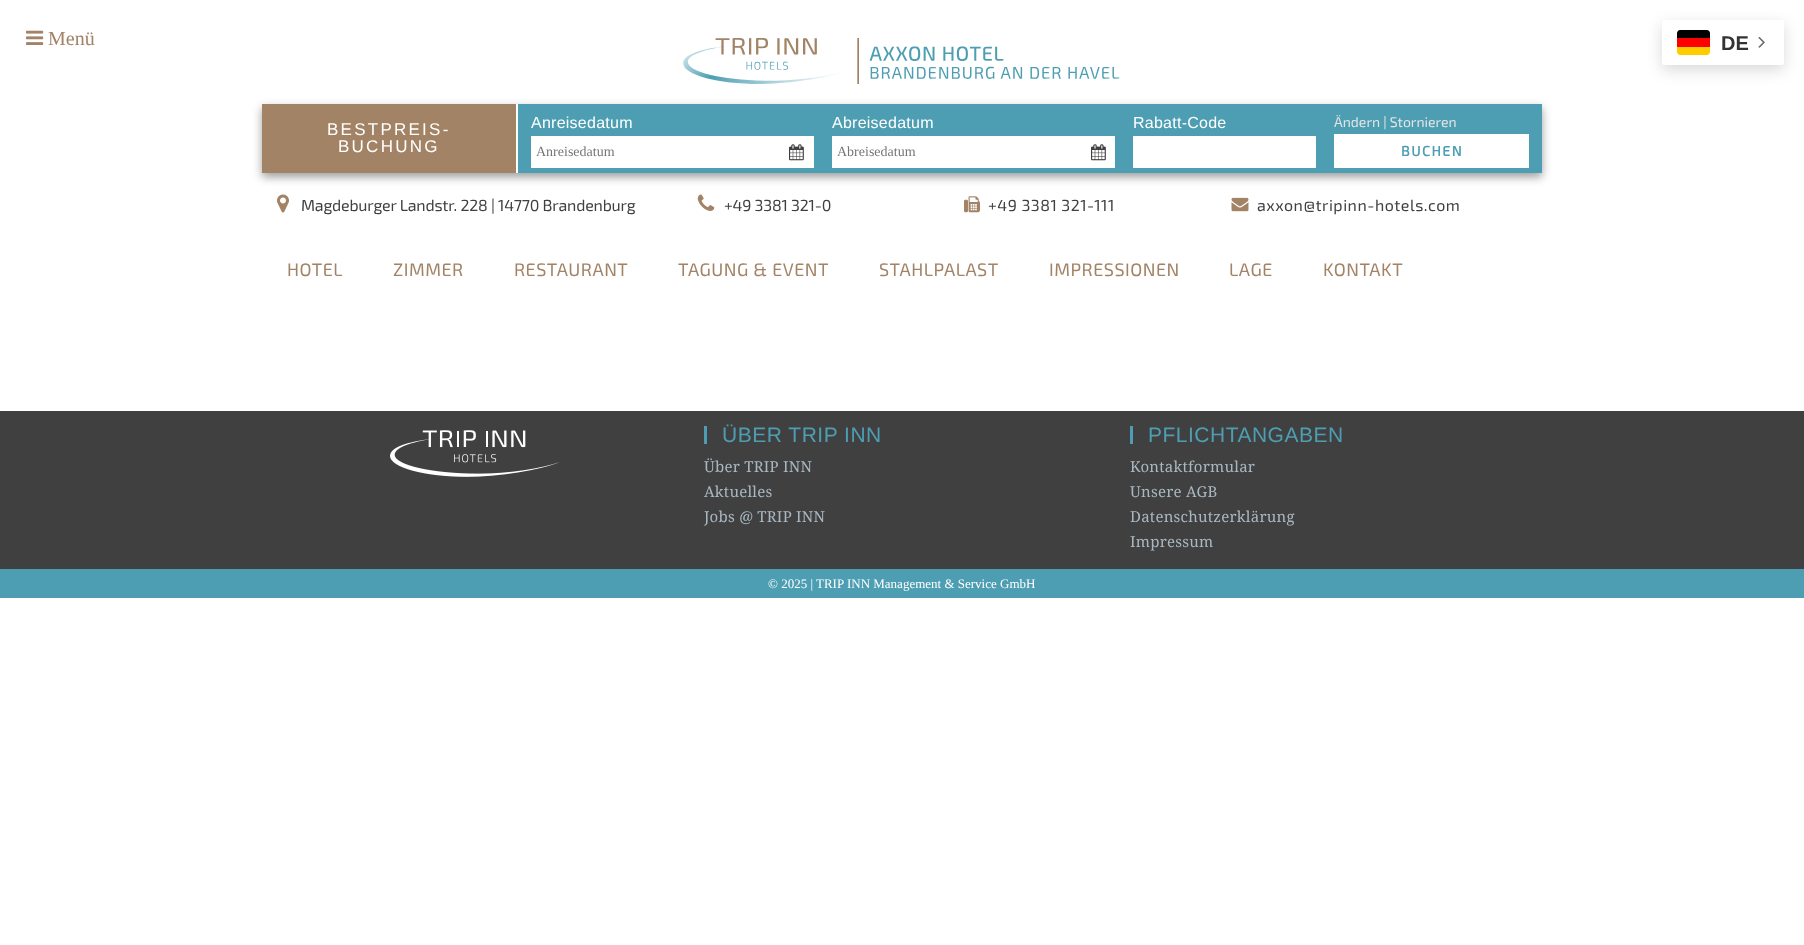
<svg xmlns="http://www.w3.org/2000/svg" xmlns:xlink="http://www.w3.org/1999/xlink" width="1804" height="945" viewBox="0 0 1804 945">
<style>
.cls-1{font:20px Liberation Serif;fill:#a28366}
.cls-2{font:bold 20px Liberation Sans;fill:#333333}
.cls-3{font:17px Liberation Sans;letter-spacing:2.25px;fill:#ffffff}
.cls-4{font:16px Liberation Sans;letter-spacing:0.25px;fill:#ffffff}
.cls-5{font:14px Liberation Serif;fill:#757575}
.cls-6{font:14px 'Exo 2';fill:#e5e5e5}
.cls-7{font:bold 14px 'Exo 2';letter-spacing:1.5px;fill:#4d9eb2}
.cls-8{font:16px 'Exo 2';letter-spacing:-0.2px;fill:#404040}
.cls-9{font:16px 'Exo 2';letter-spacing:0.5px;fill:#404040}
.cls-10{font:18px 'Exo 2';letter-spacing:0.5px;fill:#a28366}
.cls-11{font:21px Liberation Sans;letter-spacing:0.5px;fill:#4d9eb2}
.cls-12{font:15px Noto Serif;letter-spacing:0.25px;fill:#a9b8c0}
.cls-13{font:13px Liberation Serif;fill:#ffffff}
</style>
<rect width="100%" height="100%" fill="#ffffff"/>
<image xlink:href="image0.png" x="26" y="30" width="18" height="15"/>
<rect fill="#000000" fill-opacity="0.15" filter="blur(7.5px)" x="1662" y="25" width="122" height="45" rx="2"/>
<rect fill="#ffffff" x="1662" y="20" width="122" height="45" rx="2"/>
<path fill="#ffcc00" d="M1677 47H1710V52C1710 53.5 1708.5 55 1707 55H1680C1678.5 55 1677 53.5 1677 52Z"/>
<path fill="#000000" d="M1680 30H1707C1708.5 30 1710 31.5 1710 33V38H1677V33C1677 31.5 1678.5 30 1680 30Z"/>
<rect fill="#ff0000" x="1677" y="38" width="33" height="9"/>
<image xlink:href="image1.png" x="1758" y="37" width="7" height="11"/>
<image xlink:href="image2.png" x="683" y="37" width="437" height="47"/>
<rect fill="#000000" fill-opacity="0.39" filter="blur(5px)" x="262" y="108" width="1280" height="69"/>
<rect fill="#4d9eb2" x="518" y="104" width="1024" height="69"/>
<rect fill="#a28366" x="262" y="104" width="254" height="69"/>
<rect fill="#ffffff" x="516" y="104" width="2" height="69"/>
<rect fill="#ffffff" x="531" y="136" width="283" height="32"/>
<image xlink:href="image3.png" x="789" y="144" width="15" height="17"/>
<rect fill="#ffffff" x="832" y="136" width="283" height="32"/>
<image xlink:href="image3.png" x="1091" y="144" width="15" height="17"/>
<rect fill="#ffffff" x="1133" y="136" width="183" height="32"/>
<rect fill="#ffffff" x="1334" y="134" width="195" height="34"/>
<image xlink:href="image4.png" x="277" y="194" width="12" height="19"/>
<image xlink:href="image5.png" x="697" y="194" width="18" height="17"/>
<image xlink:href="image6.png" x="964" y="196" width="16" height="17"/>
<image xlink:href="image7.png" x="1231" y="197" width="18" height="15"/>
<rect fill="#404040" x="0" y="411" width="1804" height="158"/>
<image xlink:href="image8.png" x="390" y="430" width="170" height="47"/>
<rect fill="#4d9eb2" x="704" y="426" width="3" height="18"/>
<rect fill="#4d9eb2" x="1130" y="426" width="3" height="18"/>
<rect fill="#4d9eb2" x="0" y="569" width="1804" height="29"/>
<text class="cls-1" x="48" y="45">Menü</text>
<text class="cls-2" x="1721" y="50">DE</text>
<text class="cls-3" x="327" y="135">BESTPREIS-</text>
<text class="cls-3" x="338" y="152">BUCHUNG</text>
<text class="cls-4" x="531" y="128">Anreisedatum</text>
<text class="cls-5" x="536" y="156">Anreisedatum</text>
<text class="cls-4" x="832" y="128">Abreisedatum</text>
<text class="cls-5" x="837" y="156">Abreisedatum</text>
<text class="cls-4" x="1133" y="128">Rabatt-Code</text>
<text class="cls-6" x="1334" y="127">Ändern | Stornieren</text>
<text class="cls-7" x="1401" y="156">BUCHEN</text>
<text class="cls-8" x="301" y="211">Magdeburger Landstr. 228 | 14770 Brandenburg</text>
<text class="cls-8" x="724" y="211">+49 3381 321-0</text>
<text class="cls-9" x="988" y="211">+49 3381 321-111</text>
<text class="cls-9" x="1257" y="211">axxon@tripinn-hotels.com</text>
<text class="cls-10" x="287" y="276">HOTEL</text>
<text class="cls-10" x="393" y="276">ZIMMER</text>
<text class="cls-10" x="514" y="276">RESTAURANT</text>
<text class="cls-10" x="678" y="276">TAGUNG &amp; EVENT</text>
<text class="cls-10" x="879" y="276">STAHLPALAST</text>
<text class="cls-10" x="1049" y="276">IMPRESSIONEN</text>
<text class="cls-10" x="1229" y="276">LAGE</text>
<text class="cls-10" x="1323" y="276">KONTAKT</text>
<text class="cls-11" x="722" y="442">ÜBER TRIP INN</text>
<text class="cls-12"><tspan x="704" y="472">Über TRIP INN</tspan><tspan x="704" y="497">Aktuelles</tspan><tspan x="704" y="522">Jobs @ TRIP INN</tspan></text>
<text class="cls-11" x="1148" y="442">PFLICHTANGABEN</text>
<text class="cls-12"><tspan x="1130" y="472">Kontaktformular</tspan><tspan x="1130" y="497">Unsere AGB</tspan><tspan x="1130" y="522">Datenschutzerklärung</tspan><tspan x="1130" y="547">Impressum</tspan></text>
<text class="cls-13" x="768" y="588">© 2025 | TRIP INN Management &amp; Service GmbH</text>
</svg>
